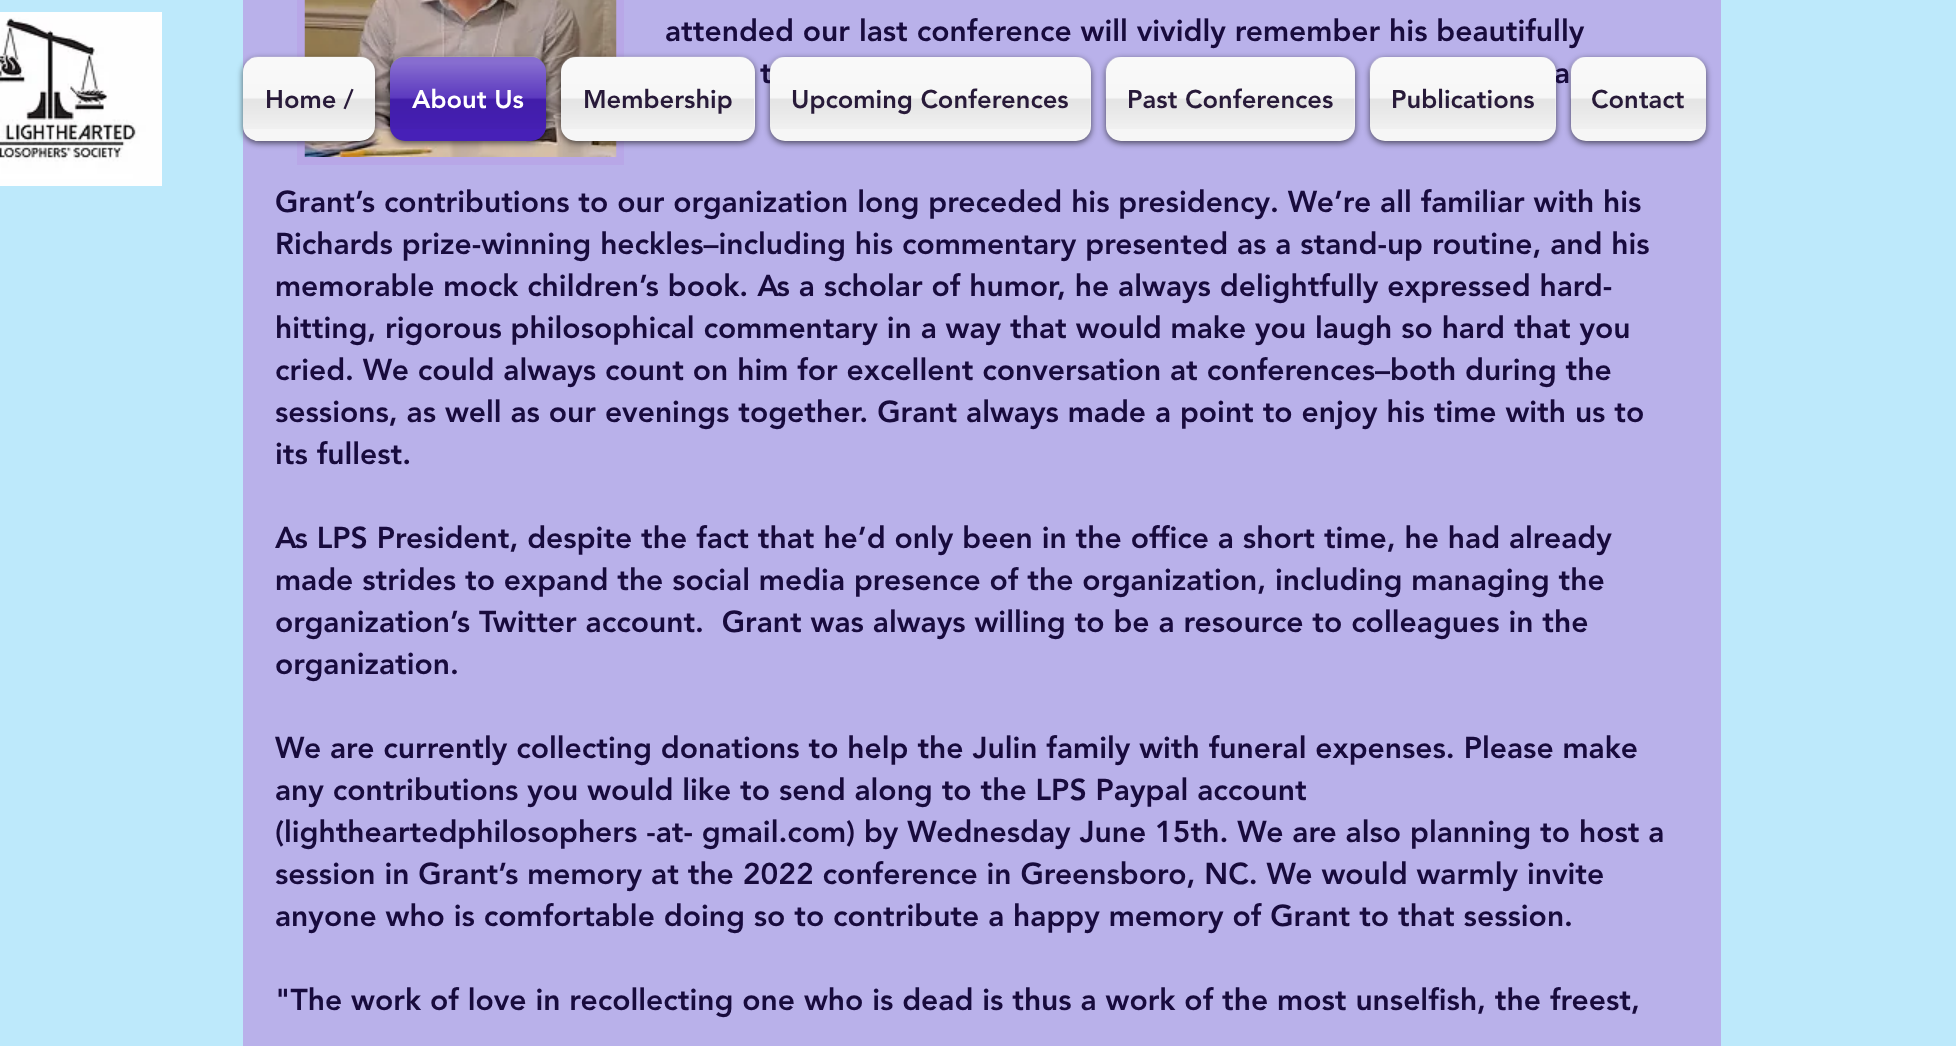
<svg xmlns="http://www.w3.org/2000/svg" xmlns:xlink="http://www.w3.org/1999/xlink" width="1956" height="1046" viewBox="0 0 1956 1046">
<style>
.cls-1{font:900 30px 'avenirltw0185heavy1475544';fill:#180b3d}
.cls-2{font:900 25.5px 'avenirltw0185heavy1475544';fill:#281a39}
.cls-3{font:900 25.5px 'avenirltw0185heavy1475544';fill:#ffffff}
</style>
<rect width="100%" height="100%" fill="#bde9fb"/>
<rect fill="#b9b1ea" x="243" y="0" width="1478" height="1046"/>
<rect fill="#b8a7e7" x="297" y="0" width="327" height="165"/>
<image xlink:href="image0.png" x="304" y="0" width="313" height="157"/>
<image xlink:href="image1.png" x="0" y="12" width="162" height="174"/>
<rect fill="#000000" fill-opacity="0.6" filter="blur(3px)" x="243" y="59" width="132" height="84" rx="15"/>
<rect fill="#f6f6f6" x="243" y="57" width="132" height="84" rx="15"/>
<image xlink:href="image2.png" x="243" y="56" width="132" height="73"/>
<rect fill="#000000" fill-opacity="0.6" filter="blur(3px)" x="390" y="59" width="156" height="84" rx="15"/>
<rect fill="#4720b7" x="390" y="57" width="156" height="84" rx="15"/>
<image xlink:href="image3.png" x="390" y="56" width="156" height="73"/>
<rect fill="#000000" fill-opacity="0.6" filter="blur(3px)" x="561" y="59" width="194" height="84" rx="15"/>
<rect fill="#f6f6f6" x="561" y="57" width="194" height="84" rx="15"/>
<image xlink:href="image4.png" x="561" y="56" width="193" height="73"/>
<rect fill="#000000" fill-opacity="0.6" filter="blur(3px)" x="770" y="59" width="321" height="84" rx="15"/>
<rect fill="#000000" fill-opacity="0.6" filter="blur(3px)" x="1106" y="59" width="249" height="84" rx="15"/>
<rect fill="#f6f6f6" x="1106" y="57" width="249" height="84" rx="15"/>
<image xlink:href="image6.png" x="1105" y="57" width="250" height="72"/>
<rect fill="#000000" fill-opacity="0.6" filter="blur(3px)" x="1370" y="59" width="186" height="84" rx="15"/>
<rect fill="#000000" fill-opacity="0.6" filter="blur(3px)" x="1571" y="59" width="135" height="84" rx="15"/>
<rect fill="#f6f6f6" x="1571" y="57" width="135" height="84" rx="15"/>
<image xlink:href="image8.png" x="1570" y="57" width="136" height="72"/>
<text class="cls-1" x="665" y="41">attended our last conference will vividly remember his beautifully</text>
<text class="cls-1" x="760" y="83">t</text>
<text class="cls-1" x="1554" y="83">a</text>
<text class="cls-1"><tspan x="275" y="212">Grant’s contributions to our organization long preceded his presidency. We’re all familiar with his</tspan><tspan x="275" y="254">Richards prize-winning heckles–including his commentary presented as a stand-up routine, and his</tspan><tspan x="275" y="296">memorable mock children’s book. As a scholar of humor, he always delightfully expressed hard-</tspan><tspan x="275" y="338">hitting, rigorous philosophical commentary in a way that would make you laugh so hard that you</tspan><tspan x="275" y="380">cried. We could always count on him for excellent conversation at conferences–both during the</tspan><tspan x="275" y="422">sessions, as well as our evenings together. Grant always made a point to enjoy his time with us to</tspan><tspan x="275" y="464">its fullest.</tspan></text>
<text class="cls-1" xml:space="preserve"><tspan x="275" y="548">As LPS President, despite the fact that he’d only been in the office a short time, he had already</tspan><tspan x="275" y="590">made strides to expand the social media presence of the organization, including managing the</tspan><tspan x="275" y="632">organization’s Twitter account.  Grant was always willing to be a resource to colleagues in the</tspan><tspan x="275" y="674">organization.</tspan></text>
<text class="cls-1"><tspan x="275" y="758">We are currently collecting donations to help the Julin family with funeral expenses. Please make</tspan><tspan x="275" y="800">any contributions you would like to send along to the LPS Paypal account</tspan><tspan x="275" y="842">(lightheartedphilosophers -at- gmail.com) by Wednesday June 15th. We are also planning to host a</tspan><tspan x="275" y="884">session in Grant’s memory at the 2022 conference in Greensboro, NC. We would warmly invite</tspan><tspan x="275" y="926">anyone who is comfortable doing so to contribute a happy memory of Grant to that session.</tspan></text>
<text class="cls-1" x="275" y="1010">"The work of love in recollecting one who is dead is thus a work of the most unselfish, the freest,</text>
<text class="cls-2" x="265" y="108">Home /</text>
<text class="cls-3" x="412" y="108">About Us</text>
<text class="cls-2" x="583" y="108">Membership</text>
<rect fill="#f6f6f6" x="770" y="57" width="321" height="84" rx="15"/>
<image xlink:href="image5.png" x="770" y="57" width="321" height="72"/>
<text class="cls-2" x="791" y="108">Upcoming Conferences</text>
<text class="cls-2" x="1127" y="108">Past Conferences</text>
<rect fill="#f6f6f6" x="1370" y="57" width="186" height="84" rx="15"/>
<image xlink:href="image7.png" x="1369" y="57" width="187" height="72"/>
<text class="cls-2" x="1391" y="108">Publications</text>
<text class="cls-2" x="1591" y="108">Contact</text>
</svg>
